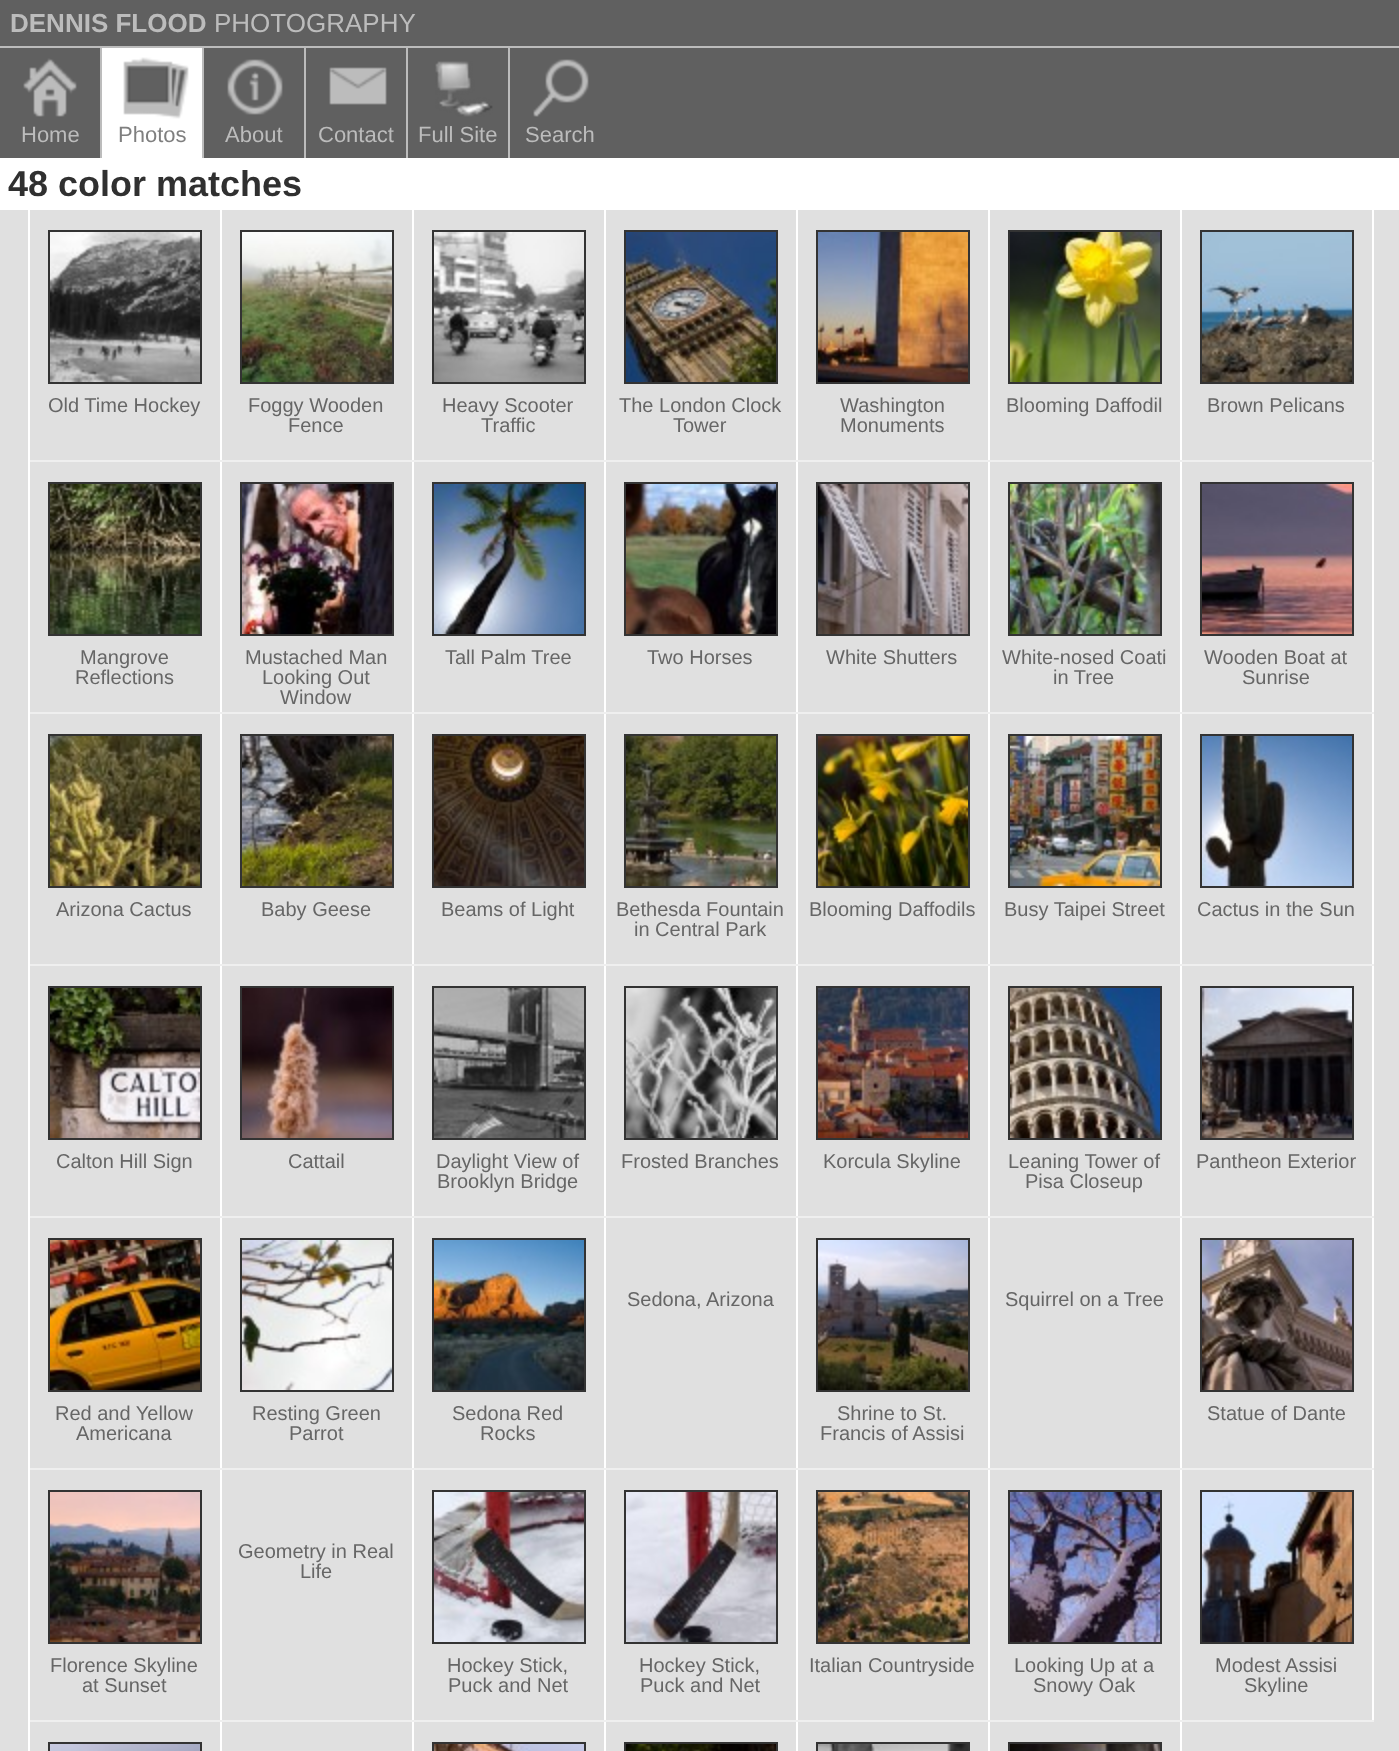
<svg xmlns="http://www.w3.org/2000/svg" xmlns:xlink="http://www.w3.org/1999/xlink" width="1399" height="1751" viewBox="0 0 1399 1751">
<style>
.cls-1{font:bold 26px Liberation Sans;fill:#bcbcbc}
.cls-2{font:26px Liberation Sans;fill:#bcbcbc}
.cls-3{font:22px Liberation Sans;fill:#bcbcbc}
.cls-4{font:22px Liberation Sans;fill:#7f7f7f}
.cls-5{font:bold 36px Liberation Sans;fill:#303030}
.cls-6{font:20px Liberation Sans;fill:#666666}
</style>
<rect width="100%" height="100%" fill="#ffffff"/>
<rect fill="#606060" x="0" y="0" width="1399" height="46"/>
<rect fill="#bcbcbc" x="0" y="46" width="1399" height="2"/>
<rect fill="#606060" x="0" y="48" width="1399" height="110"/>
<image xlink:href="image0.png" x="23" y="58" width="54" height="59"/>
<rect fill="#bcbcbc" x="100" y="48" width="2" height="110"/>
<rect fill="#ffffff" x="102" y="48" width="100" height="110"/>
<image xlink:href="image1.png" x="123" y="57" width="66" height="62"/>
<rect fill="#bcbcbc" x="202" y="48" width="2" height="110"/>
<image xlink:href="image2.png" x="227" y="59" width="56" height="56"/>
<rect fill="#bcbcbc" x="304" y="48" width="2" height="110"/>
<image xlink:href="image3.png" x="329" y="67" width="58" height="38"/>
<rect fill="#bcbcbc" x="406" y="48" width="2" height="110"/>
<image xlink:href="image4.png" x="435" y="61" width="58" height="56"/>
<rect fill="#bcbcbc" x="508" y="48" width="2" height="110"/>
<image xlink:href="image5.png" x="533" y="59" width="56" height="58"/>
<rect fill="#e0e0e0" x="0" y="210" width="1399" height="1541"/>
<rect fill="#ffffff" x="28" y="210" width="2" height="1541"/>
<rect fill="#ffffff" x="220" y="210" width="2" height="1541"/>
<rect fill="#efefef" x="30" y="460" width="192" height="2"/>
<rect fill="none" stroke="#333333" stroke-width="2" x="49" y="231" width="152" height="152"/>
<image xlink:href="image6.png" x="50" y="232" width="150" height="150"/>
<rect fill="#ffffff" x="412" y="210" width="2" height="1541"/>
<rect fill="#efefef" x="222" y="460" width="192" height="2"/>
<rect fill="none" stroke="#333333" stroke-width="2" x="241" y="231" width="152" height="152"/>
<image xlink:href="image7.png" x="242" y="232" width="150" height="150"/>
<rect fill="#ffffff" x="604" y="210" width="2" height="1541"/>
<rect fill="#efefef" x="414" y="460" width="192" height="2"/>
<rect fill="none" stroke="#333333" stroke-width="2" x="433" y="231" width="152" height="152"/>
<image xlink:href="image8.png" x="434" y="232" width="150" height="150"/>
<rect fill="#ffffff" x="796" y="210" width="2" height="1541"/>
<rect fill="#efefef" x="606" y="460" width="192" height="2"/>
<rect fill="none" stroke="#333333" stroke-width="2" x="625" y="231" width="152" height="152"/>
<image xlink:href="image9.png" x="626" y="232" width="150" height="150"/>
<rect fill="#ffffff" x="988" y="210" width="2" height="1541"/>
<rect fill="#efefef" x="798" y="460" width="192" height="2"/>
<rect fill="none" stroke="#333333" stroke-width="2" x="817" y="231" width="152" height="152"/>
<image xlink:href="image10.png" x="818" y="232" width="150" height="150"/>
<rect fill="#ffffff" x="1180" y="210" width="2" height="1541"/>
<rect fill="#efefef" x="990" y="460" width="192" height="2"/>
<rect fill="none" stroke="#333333" stroke-width="2" x="1009" y="231" width="152" height="152"/>
<image xlink:href="image11.png" x="1010" y="232" width="150" height="150"/>
<rect fill="#ffffff" x="1372" y="210" width="2" height="1512"/>
<rect fill="#efefef" x="1182" y="460" width="192" height="2"/>
<rect fill="none" stroke="#333333" stroke-width="2" x="1201" y="231" width="152" height="152"/>
<image xlink:href="image12.png" x="1202" y="232" width="150" height="150"/>
<rect fill="#efefef" x="30" y="712" width="1344" height="2"/>
<rect fill="none" stroke="#333333" stroke-width="2" x="49" y="483" width="152" height="152"/>
<image xlink:href="image13.png" x="50" y="484" width="150" height="150"/>
<rect fill="none" stroke="#333333" stroke-width="2" x="241" y="483" width="152" height="152"/>
<image xlink:href="image14.png" x="242" y="484" width="150" height="150"/>
<rect fill="none" stroke="#333333" stroke-width="2" x="433" y="483" width="152" height="152"/>
<image xlink:href="image15.png" x="434" y="484" width="150" height="150"/>
<rect fill="none" stroke="#333333" stroke-width="2" x="625" y="483" width="152" height="152"/>
<image xlink:href="image16.png" x="626" y="484" width="150" height="150"/>
<rect fill="none" stroke="#333333" stroke-width="2" x="817" y="483" width="152" height="152"/>
<image xlink:href="image17.png" x="818" y="484" width="150" height="150"/>
<rect fill="none" stroke="#333333" stroke-width="2" x="1009" y="483" width="152" height="152"/>
<image xlink:href="image18.png" x="1010" y="484" width="150" height="150"/>
<rect fill="none" stroke="#333333" stroke-width="2" x="1201" y="483" width="152" height="152"/>
<image xlink:href="image19.png" x="1202" y="484" width="150" height="150"/>
<rect fill="#efefef" x="30" y="964" width="1344" height="2"/>
<rect fill="none" stroke="#333333" stroke-width="2" x="49" y="735" width="152" height="152"/>
<image xlink:href="image20.png" x="50" y="736" width="150" height="150"/>
<rect fill="none" stroke="#333333" stroke-width="2" x="241" y="735" width="152" height="152"/>
<image xlink:href="image21.png" x="242" y="736" width="150" height="150"/>
<rect fill="none" stroke="#333333" stroke-width="2" x="433" y="735" width="152" height="152"/>
<image xlink:href="image22.png" x="434" y="736" width="150" height="150"/>
<rect fill="none" stroke="#333333" stroke-width="2" x="625" y="735" width="152" height="152"/>
<image xlink:href="image23.png" x="626" y="736" width="150" height="150"/>
<rect fill="none" stroke="#333333" stroke-width="2" x="817" y="735" width="152" height="152"/>
<image xlink:href="image24.png" x="818" y="736" width="150" height="150"/>
<rect fill="none" stroke="#333333" stroke-width="2" x="1009" y="735" width="152" height="152"/>
<image xlink:href="image25.png" x="1010" y="736" width="150" height="150"/>
<rect fill="none" stroke="#333333" stroke-width="2" x="1201" y="735" width="152" height="152"/>
<image xlink:href="image26.png" x="1202" y="736" width="150" height="150"/>
<rect fill="#efefef" x="30" y="1216" width="1344" height="2"/>
<rect fill="none" stroke="#333333" stroke-width="2" x="49" y="987" width="152" height="152"/>
<image xlink:href="image27.png" x="50" y="988" width="150" height="150"/>
<rect fill="none" stroke="#333333" stroke-width="2" x="241" y="987" width="152" height="152"/>
<image xlink:href="image28.png" x="242" y="988" width="150" height="150"/>
<rect fill="none" stroke="#333333" stroke-width="2" x="433" y="987" width="152" height="152"/>
<image xlink:href="image29.png" x="434" y="988" width="150" height="150"/>
<rect fill="none" stroke="#333333" stroke-width="2" x="625" y="987" width="152" height="152"/>
<image xlink:href="image30.png" x="626" y="988" width="150" height="150"/>
<rect fill="none" stroke="#333333" stroke-width="2" x="817" y="987" width="152" height="152"/>
<image xlink:href="image31.png" x="818" y="988" width="150" height="150"/>
<rect fill="none" stroke="#333333" stroke-width="2" x="1009" y="987" width="152" height="152"/>
<image xlink:href="image32.png" x="1010" y="988" width="150" height="150"/>
<rect fill="none" stroke="#333333" stroke-width="2" x="1201" y="987" width="152" height="152"/>
<image xlink:href="image33.png" x="1202" y="988" width="150" height="150"/>
<rect fill="#efefef" x="30" y="1468" width="1344" height="2"/>
<rect fill="none" stroke="#333333" stroke-width="2" x="49" y="1239" width="152" height="152"/>
<image xlink:href="image34.png" x="50" y="1240" width="150" height="150"/>
<rect fill="none" stroke="#333333" stroke-width="2" x="241" y="1239" width="152" height="152"/>
<image xlink:href="image35.png" x="242" y="1240" width="150" height="150"/>
<rect fill="none" stroke="#333333" stroke-width="2" x="433" y="1239" width="152" height="152"/>
<image xlink:href="image36.png" x="434" y="1240" width="150" height="150"/>
<rect fill="none" stroke="#333333" stroke-width="2" x="817" y="1239" width="152" height="152"/>
<image xlink:href="image37.png" x="818" y="1240" width="150" height="150"/>
<rect fill="none" stroke="#333333" stroke-width="2" x="1201" y="1239" width="152" height="152"/>
<image xlink:href="image38.png" x="1202" y="1240" width="150" height="150"/>
<rect fill="#efefef" x="30" y="1720" width="1344" height="2"/>
<rect fill="none" stroke="#333333" stroke-width="2" x="49" y="1491" width="152" height="152"/>
<image xlink:href="image39.png" x="50" y="1492" width="150" height="150"/>
<rect fill="none" stroke="#333333" stroke-width="2" x="433" y="1491" width="152" height="152"/>
<image xlink:href="image40.png" x="434" y="1492" width="150" height="150"/>
<rect fill="none" stroke="#333333" stroke-width="2" x="625" y="1491" width="152" height="152"/>
<image xlink:href="image41.png" x="626" y="1492" width="150" height="150"/>
<rect fill="none" stroke="#333333" stroke-width="2" x="817" y="1491" width="152" height="152"/>
<image xlink:href="image42.png" x="818" y="1492" width="150" height="150"/>
<rect fill="none" stroke="#333333" stroke-width="2" x="1009" y="1491" width="152" height="152"/>
<image xlink:href="image43.png" x="1010" y="1492" width="150" height="150"/>
<rect fill="none" stroke="#333333" stroke-width="2" x="1201" y="1491" width="152" height="152"/>
<image xlink:href="image44.png" x="1202" y="1492" width="150" height="150"/>
<rect fill="none" stroke="#333333" stroke-width="2" x="49" y="1743" width="152" height="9"/>
<image xlink:href="image45.png" x="50" y="1744" width="150" height="7"/>
<rect fill="none" stroke="#333333" stroke-width="2" x="433" y="1743" width="152" height="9"/>
<image xlink:href="image46.png" x="434" y="1744" width="150" height="7"/>
<rect fill="none" stroke="#333333" stroke-width="2" x="625" y="1743" width="152" height="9"/>
<image xlink:href="image47.png" x="626" y="1744" width="150" height="7"/>
<rect fill="none" stroke="#333333" stroke-width="2" x="817" y="1743" width="152" height="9"/>
<image xlink:href="image48.png" x="818" y="1744" width="150" height="7"/>
<rect fill="none" stroke="#333333" stroke-width="2" x="1009" y="1743" width="152" height="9"/>
<image xlink:href="image49.png" x="1010" y="1744" width="150" height="7"/>
<text class="cls-1" x="10" y="32">DENNIS FLOOD</text>
<text class="cls-2" x="214" y="32">PHOTOGRAPHY</text>
<text class="cls-3" x="21" y="142">Home</text>
<text class="cls-4" x="118" y="142">Photos</text>
<text class="cls-3" x="225" y="142">About</text>
<text class="cls-3" x="318" y="142">Contact</text>
<text class="cls-3" x="418" y="142">Full Site</text>
<text class="cls-3" x="525" y="142">Search</text>
<text class="cls-5" x="8" y="196">48 color matches</text>
<text class="cls-6" x="48" y="412">Old Time Hockey</text>
<text class="cls-6" x="248" y="412">Foggy Wooden</text>
<text class="cls-6" x="288" y="432">Fence</text>
<text class="cls-6" x="442" y="412">Heavy Scooter</text>
<text class="cls-6" x="481" y="432">Traffic</text>
<text class="cls-6" x="619" y="412">The London Clock</text>
<text class="cls-6" x="673" y="432">Tower</text>
<text class="cls-6"><tspan x="840" y="412">Washington</tspan><tspan x="840" y="432">Monuments</tspan></text>
<text class="cls-6" x="1006" y="412">Blooming Daffodil</text>
<text class="cls-6" x="1207" y="412">Brown Pelicans</text>
<text class="cls-6" x="80" y="664">Mangrove</text>
<text class="cls-6" x="75" y="684">Reflections</text>
<text class="cls-6" x="245" y="664">Mustached Man</text>
<text class="cls-6" x="262" y="684">Looking Out</text>
<text class="cls-6" x="280" y="704">Window</text>
<text class="cls-6" x="445" y="664">Tall Palm Tree</text>
<text class="cls-6" x="647" y="664">Two Horses</text>
<text class="cls-6" x="826" y="664">White Shutters</text>
<text class="cls-6" x="1002" y="664">White-nosed Coati</text>
<text class="cls-6" x="1053" y="684">in Tree</text>
<text class="cls-6" x="1204" y="664">Wooden Boat at</text>
<text class="cls-6" x="1242" y="684">Sunrise</text>
<text class="cls-6" x="56" y="916">Arizona Cactus</text>
<text class="cls-6" x="261" y="916">Baby Geese</text>
<text class="cls-6" x="441" y="916">Beams of Light</text>
<text class="cls-6" x="616" y="916">Bethesda Fountain</text>
<text class="cls-6" x="634" y="936">in Central Park</text>
<text class="cls-6" x="809" y="916">Blooming Daffodils</text>
<text class="cls-6" x="1004" y="916">Busy Taipei Street</text>
<text class="cls-6" x="1197" y="916">Cactus in the Sun</text>
<text class="cls-6" x="56" y="1168">Calton Hill Sign</text>
<text class="cls-6" x="288" y="1168">Cattail</text>
<text class="cls-6" x="436" y="1168">Daylight View of</text>
<text class="cls-6" x="437" y="1188">Brooklyn Bridge</text>
<text class="cls-6" x="621" y="1168">Frosted Branches</text>
<text class="cls-6" x="823" y="1168">Korcula Skyline</text>
<text class="cls-6" x="1008" y="1168">Leaning Tower of</text>
<text class="cls-6" x="1025" y="1188">Pisa Closeup</text>
<text class="cls-6" x="1196" y="1168">Pantheon Exterior</text>
<text class="cls-6" x="627" y="1306">Sedona, Arizona</text>
<text class="cls-6" x="1005" y="1306">Squirrel on a Tree</text>
<text class="cls-6" x="55" y="1420">Red and Yellow</text>
<text class="cls-6" x="76" y="1440">Americana</text>
<text class="cls-6" x="252" y="1420">Resting Green</text>
<text class="cls-6" x="289" y="1440">Parrot</text>
<text class="cls-6" x="452" y="1420">Sedona Red</text>
<text class="cls-6" x="480" y="1440">Rocks</text>
<text class="cls-6" x="837" y="1420">Shrine to St.</text>
<text class="cls-6" x="820" y="1440">Francis of Assisi</text>
<text class="cls-6" x="1207" y="1420">Statue of Dante</text>
<text class="cls-6" x="238" y="1558">Geometry in Real</text>
<text class="cls-6" x="300" y="1578">Life</text>
<text class="cls-6" x="50" y="1672">Florence Skyline</text>
<text class="cls-6" x="82" y="1692">at Sunset</text>
<text class="cls-6" x="447" y="1672">Hockey Stick,</text>
<text class="cls-6" x="448" y="1692">Puck and Net</text>
<text class="cls-6" x="639" y="1672">Hockey Stick,</text>
<text class="cls-6" x="640" y="1692">Puck and Net</text>
<text class="cls-6" x="809" y="1672">Italian Countryside</text>
<text class="cls-6" x="1014" y="1672">Looking Up at a</text>
<text class="cls-6" x="1033" y="1692">Snowy Oak</text>
<text class="cls-6" x="1215" y="1672">Modest Assisi</text>
<text class="cls-6" x="1244" y="1692">Skyline</text>
</svg>
